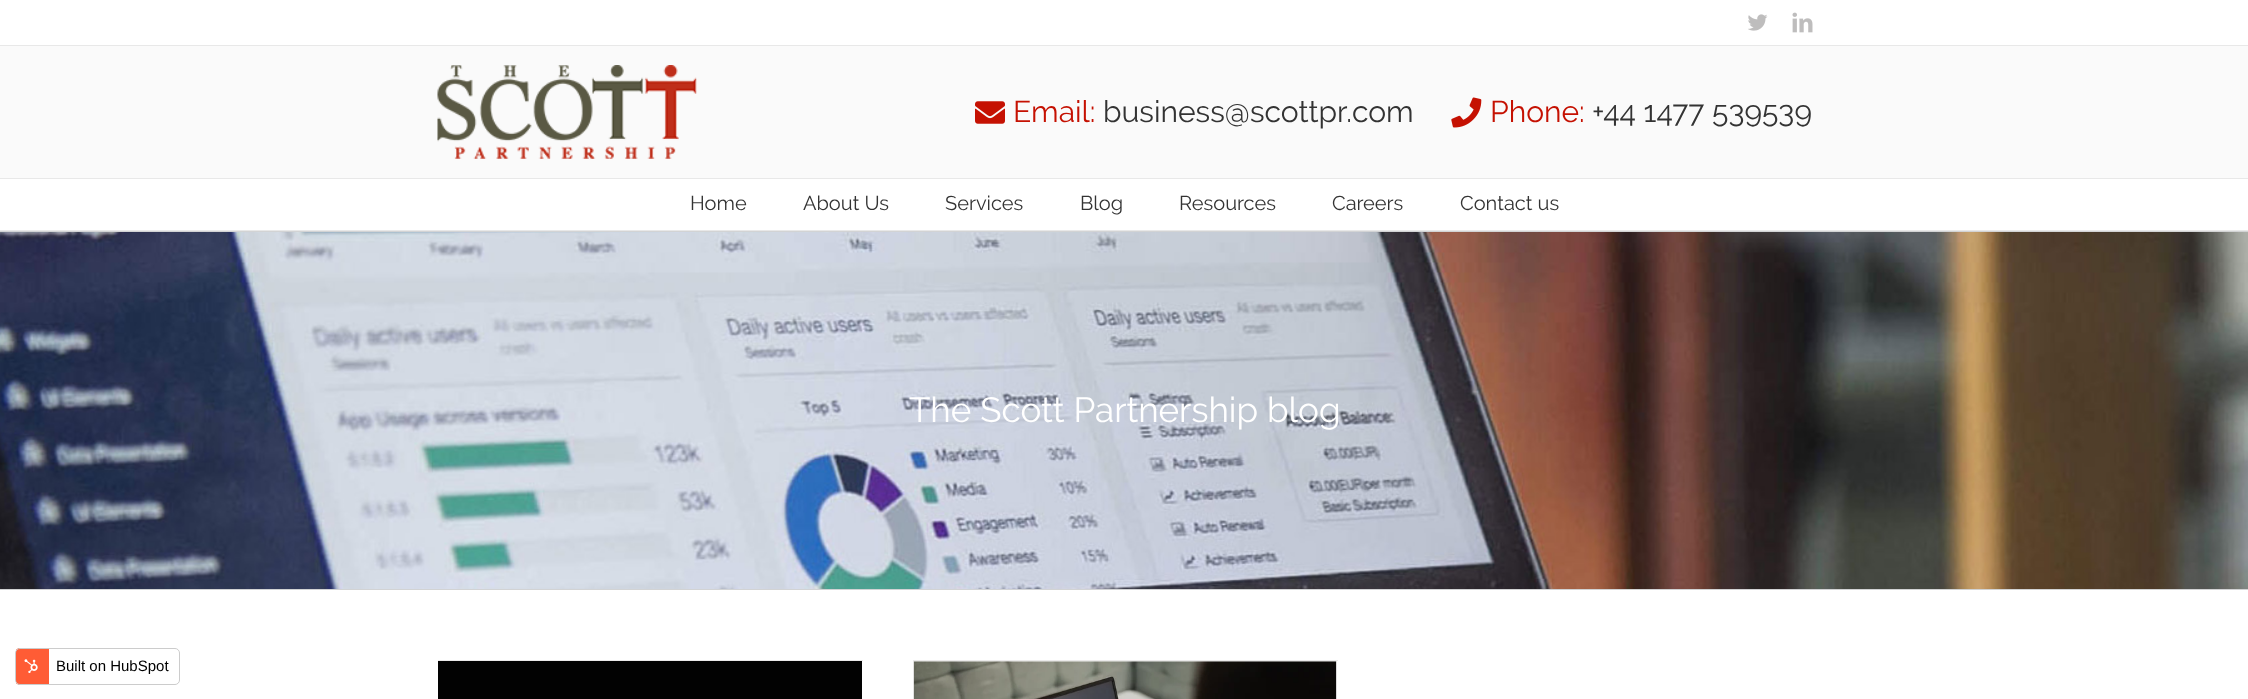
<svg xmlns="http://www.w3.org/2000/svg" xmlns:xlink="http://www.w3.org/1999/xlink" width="2248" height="699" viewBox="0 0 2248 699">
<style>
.cls-1{font:30px Raleway;fill:#c51102}
.cls-2{font:30px Raleway;fill:#333333}
.cls-3{font:20px Raleway;fill:#333333}
.cls-4{font:35px Raleway;fill:#ffffff}
.cls-5{font:15px Liberation Sans;fill:#000000}
</style>
<defs>
<clipPath id="clip1"><rect x="15" y="648" width="165" height="37" rx="5"/></clipPath>
</defs>
<rect width="100%" height="100%" fill="#ffffff"/>
<rect fill="#e8e8e8" x="0" y="45" width="2248" height="1"/>
<image xlink:href="image0.png" x="1748" y="14" width="20" height="17"/>
<image xlink:href="image1.png" x="1792" y="12" width="21" height="21"/>
<rect fill="#fafafa" x="0" y="46" width="2248" height="132"/>
<rect fill="#e8e8e8" x="0" y="178" width="2248" height="1"/>
<image xlink:href="image2.png" x="437" y="65" width="260" height="94"/>
<image xlink:href="image3.png" x="975" y="101" width="30" height="23"/>
<image xlink:href="image4.png" x="1451" y="97" width="31" height="31"/>
<rect fill="#e8e8e8" x="0" y="230" width="2248" height="1"/>
<image xlink:href="image5.png" x="0" y="232" width="2248" height="357"/>
<rect fill="#d2d3d4" x="0" y="231" width="2248" height="1"/>
<rect fill="#d2d3d4" x="0" y="589" width="2248" height="1"/>
<g clip-path="url(#clip1)">
<rect fill="#ff5c35" x="16" y="648" width="33" height="37"/>
</g>
<rect fill="none" stroke="#cccccc" x="15.5" y="648.5" width="164" height="36" rx="4.5"/>
<image xlink:href="image6.png" x="24" y="659" width="14" height="15"/>
<rect fill="#ebeaea" x="438" y="660" width="425" height="1"/>
<rect fill="#020202" x="438" y="661" width="424" height="38"/>
<rect fill="#ebeaea" x="913" y="660" width="425" height="1"/>
<rect fill="#ebeaea" x="1336" y="660" width="1" height="39"/>
<rect fill="#ebeaea" x="913" y="660" width="1" height="39"/>
<image xlink:href="image7.png" x="913" y="661" width="424" height="38"/>
<text class="cls-1" x="1013" y="122">Email:</text>
<text class="cls-2" x="1103" y="122">business@scottpr.com</text>
<text class="cls-1" x="1490" y="122">Phone:</text>
<text class="cls-2" x="1592" y="122">+44 1477 539539</text>
<text class="cls-3" x="690" y="210">Home</text>
<text class="cls-3" x="803" y="210">About Us</text>
<text class="cls-3" x="945" y="210">Services</text>
<text class="cls-3" x="1080" y="210">Blog</text>
<text class="cls-3" x="1179" y="210">Resources</text>
<text class="cls-3" x="1332" y="210">Careers</text>
<text class="cls-3" x="1460" y="210">Contact us</text>
<text class="cls-4" x="909" y="422">The Scott Partnership blog</text>
<text class="cls-5" x="56" y="671">Built on HubSpot</text>
</svg>
